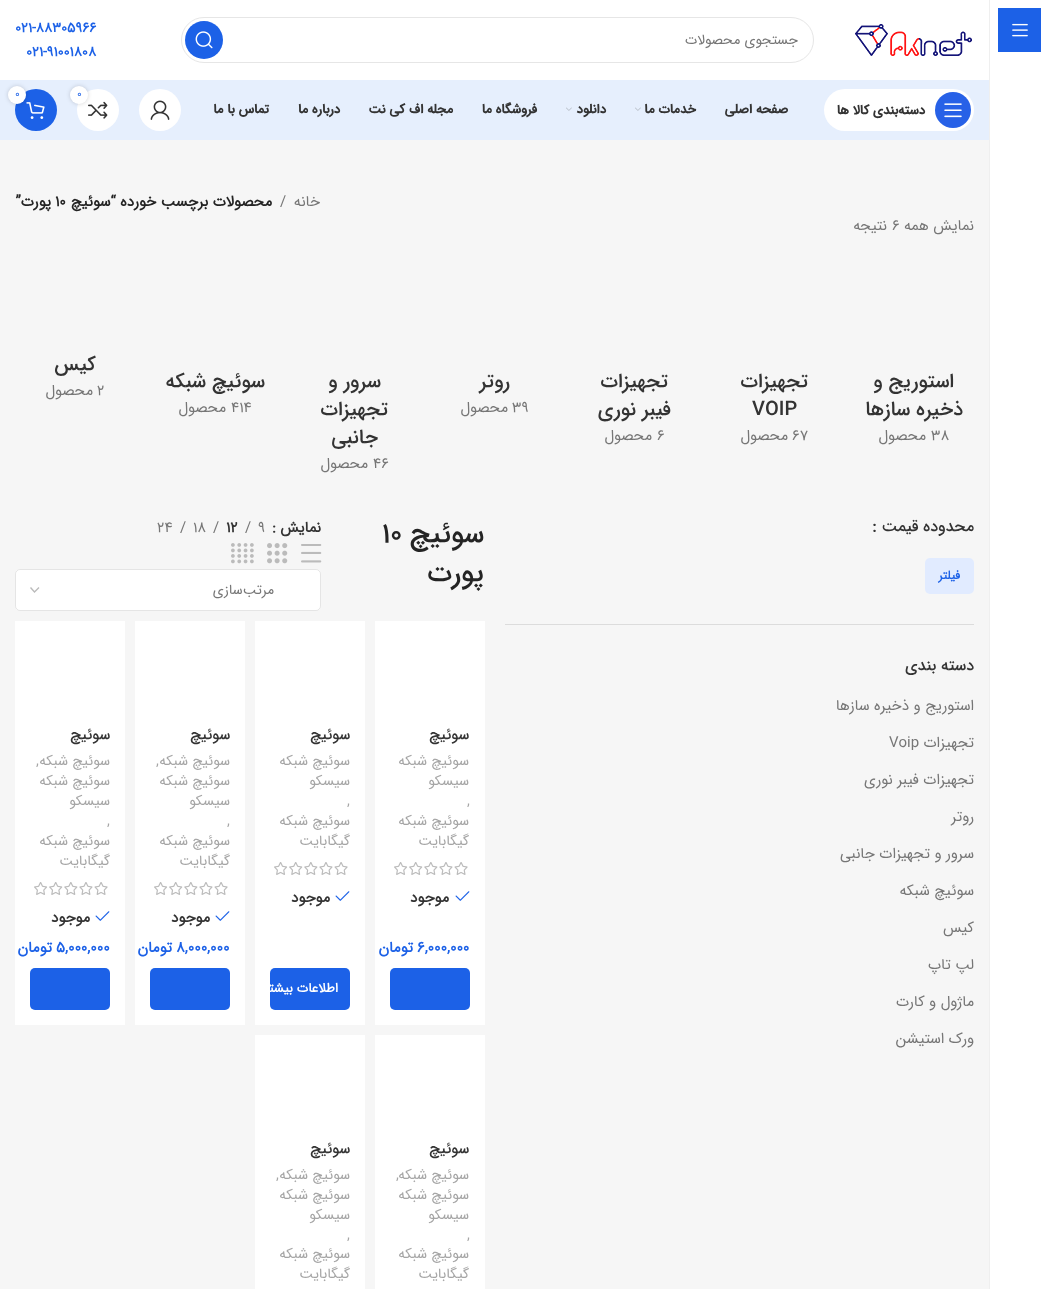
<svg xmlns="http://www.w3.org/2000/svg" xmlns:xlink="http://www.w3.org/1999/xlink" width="1049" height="1289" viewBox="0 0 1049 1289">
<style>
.cls-1{font:14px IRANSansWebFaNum;direction:rtl;fill:#767676}
.cls-2{font:bold 14px IRANSansWebFaNum;fill:#1c61e7}
.cls-3{font:11px IRANSansWebFaNum;fill:#1c61e7}
.cls-4{font:bold 13px 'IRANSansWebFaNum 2';direction:rtl;fill:#333333}
.cls-5{font:15px IRANSansWebFaNum;direction:rtl;fill:#767676}
.cls-6{font:15px IRANSansWebFaNum;fill:#767676}
.cls-7{font:bold 15px IRANSansWebFaNum;direction:rtl;fill:#242424}
.cls-8{font:bold 15px IRANSansWebFaNum;fill:#242424}
.cls-9{font:500 20px IRANSansWebFaNum;direction:rtl;fill:#333333}
.cls-10{font:500 20px IRANSansWebFaNum;fill:#333333}
.cls-11{font:500 16px IRANSansWebFaNum;direction:rtl;fill:#333333}
.cls-12{font:bold 12px IRANSansWebFaNum;direction:rtl;fill:#1c61e7}
.cls-13{font:500 28px IRANSansWebFaNum;direction:rtl;fill:#242424}
.cls-14{font:500 28px IRANSansWebFaNum;fill:#242424}
.cls-15{font:bold 15px IRANSansWebFaNum;direction:rtl;fill:#333333}
.cls-16{font:bold 15px IRANSansWebFaNum;fill:#333333}
.cls-17{font:500 15px IRANSansWebFaNum;direction:rtl;fill:#333333}
.cls-18{font:14.25px IRANSansWebFaNum;direction:rtl;fill:#a5a5a5}
.cls-19{font:14.25px IRANSansWebFaNum;fill:#a5a5a5}
.cls-20{font:bold 15px IRANSansWebFaNum;fill:#1c61e7}
.cls-21{font:bold 15px IRANSansWebFaNum;direction:rtl;fill:#1c61e7}
.cls-22{font:bold 13px IRANSansWebFaNum;direction:rtl;fill:#ffffff}
</style>
<defs>
<clipPath id="clip1"><rect x="270" y="968" width="80" height="42"/></clipPath>
</defs>
<rect width="100%" height="100%" fill="#ffffff"/>
<rect fill="#efefef" x="989" y="0" width="1" height="1289"/>
<rect fill="#1c61e7" x="998" y="8" width="43" height="44"/>
<image xlink:href="image0.png" x="1012" y="23" width="16" height="14"/>
<image xlink:href="image1.png" x="855" y="24" width="117" height="32"/>
<rect fill="none" stroke="#e6e6e6" x="181.5" y="17.5" width="632" height="45" rx="22.5"/>
<circle fill="#1c61e7" cx="204" cy="40" r="19"/>
<image xlink:href="image2.png" x="195" y="31" width="18" height="18"/>
<rect fill="#e6effd" x="0" y="80" width="989" height="60"/>
<circle fill="#ffffff" cx="160" cy="110" r="21"/>
<image xlink:href="image3.png" x="150" y="100" width="20" height="20"/>
<circle fill="#ffffff" cx="98" cy="110" r="21"/>
<image xlink:href="image4.png" x="88" y="101" width="20" height="18"/>
<rect fill="#000000" fill-opacity="0.17" filter="blur(2px)" x="70" y="86" width="18" height="18" rx="9"/>
<circle fill="#ffffff" cx="79" cy="95" r="9"/>
<circle fill="#1c61e7" cx="36" cy="110" r="21"/>
<image xlink:href="image5.png" x="26" y="102" width="19" height="17"/>
<rect fill="#000000" fill-opacity="0.17" filter="blur(2px)" x="8" y="86" width="18" height="18" rx="9"/>
<circle fill="#ffffff" cx="17" cy="95" r="9"/>
<rect fill="#ffffff" x="824" y="89" width="150" height="42" rx="21"/>
<circle fill="#2761e7" cx="953" cy="110" r="18"/>
<image xlink:href="image6.png" x="944" y="103" width="18" height="15"/>
<image xlink:href="image7.png" x="635" y="107" width="6" height="4"/>
<image xlink:href="image7.png" x="566" y="107" width="6" height="4"/>
<rect fill="#f6f6f6" x="0" y="140" width="989" height="1149"/>
<rect fill="#dcdcdc" x="505" y="624" width="469" height="1"/>
<rect fill="#e1ebff" x="925" y="558" width="49" height="36" rx="5"/>
<image xlink:href="image8.png" x="301" y="544" width="21" height="19"/>
<image xlink:href="image9.png" x="267" y="543" width="21" height="21"/>
<image xlink:href="image10.png" x="231" y="543" width="23" height="21"/>
<rect fill="#ffffff" x="15" y="569" width="306" height="42" rx="5"/>
<path fill="none" stroke="#bbbbbb" stroke-width="1.4" d="M30.5 587.5L34.5 592L39 587.5"/>
<rect fill="none" stroke="#000000" stroke-opacity="0.1" x="15.5" y="569.5" width="305" height="41" rx="4.5"/>
<rect fill="#ffffff" x="375" y="621" width="110" height="404"/>
<image xlink:href="image11.png" x="394" y="862" width="74" height="13"/>
<image xlink:href="image12.png" x="455" y="891" width="15" height="10"/>
<rect fill="#1c61e7" x="390" y="968" width="80" height="42" rx="5"/>
<rect fill="#ffffff" x="255" y="621" width="110" height="404"/>
<image xlink:href="image11.png" x="274" y="862" width="74" height="13"/>
<image xlink:href="image12.png" x="335" y="891" width="15" height="10"/>
<rect fill="#1c61e7" x="270" y="968" width="80" height="42" rx="5"/>
<rect fill="#ffffff" x="135" y="621" width="110" height="404"/>
<image xlink:href="image11.png" x="154" y="882" width="74" height="13"/>
<image xlink:href="image12.png" x="215" y="911" width="15" height="10"/>
<rect fill="#1c61e7" x="150" y="968" width="80" height="42" rx="5"/>
<rect fill="#ffffff" x="15" y="621" width="110" height="404"/>
<image xlink:href="image11.png" x="34" y="882" width="74" height="13"/>
<image xlink:href="image12.png" x="95" y="911" width="15" height="10"/>
<rect fill="#1c61e7" x="30" y="968" width="80" height="42" rx="5"/>
<rect fill="#ffffff" x="375" y="1035" width="110" height="254"/>
<rect fill="#ffffff" x="255" y="1035" width="110" height="254"/>
<text class="cls-1" x="798" y="44">جستجوی محصولات</text>
<text class="cls-2" x="15" y="32">021-88305966</text>
<text class="cls-2" x="26" y="56">021-91001808</text>
<text class="cls-3" x="77" y="97">0</text>
<text class="cls-3" x="15" y="97">0</text>
<text class="cls-4" x="925" y="114">دسته‌بندی کالا ها</text>
<text class="cls-4" x="788" y="113">صفحه اصلی</text>
<text class="cls-4" x="696" y="113">خدمات ما</text>
<text class="cls-4" x="606" y="113">دانلود</text>
<text class="cls-4" x="537" y="113">فروشگاه ما</text>
<text class="cls-4" x="453" y="113">مجله اف کی نت</text>
<text class="cls-4" x="340" y="113">درباره ما</text>
<text class="cls-4" x="269" y="113">تماس با ما</text>
<text class="cls-5" x="320" y="206">خانه</text>
<text class="cls-6" x="280" y="206">/</text>
<text class="cls-7" x="272" y="206">محصولات برچسب خورده “سوئیچ</text>
<text class="cls-8" x="55" y="206">10</text>
<text class="cls-7" x="51" y="206">پورت”</text>
<text class="cls-5" x="974" y="230">نمایش همه</text>
<text class="cls-6" x="892" y="230">6</text>
<text class="cls-5" x="887" y="230">نتیجه</text>
<text class="cls-9" x="954" y="387">استوریج و</text>
<text class="cls-9" x="963" y="415">ذخیره سازها</text>
<text class="cls-6" x="931" y="440">38</text>
<text class="cls-5" x="926" y="440">محصول</text>
<text class="cls-9" x="808" y="387">تجهیزات</text>
<text class="cls-10" x="752" y="415">VOIP</text>
<text class="cls-6" x="792" y="440">67</text>
<text class="cls-5" x="788" y="440">محصول</text>
<text class="cls-9" x="668" y="387">تجهیزات</text>
<text class="cls-9" x="671" y="415">فیبر نوری</text>
<text class="cls-6" x="657" y="440">6</text>
<text class="cls-5" x="652" y="440">محصول</text>
<text class="cls-9" x="510" y="387">روتر</text>
<text class="cls-6" x="512" y="412">39</text>
<text class="cls-5" x="508" y="412">محصول</text>
<text class="cls-9" x="381" y="387">سرور و</text>
<text class="cls-9" x="388" y="415">تجهیزات</text>
<text class="cls-9" x="378" y="443">جانبی</text>
<text class="cls-6" x="373" y="468">46</text>
<text class="cls-5" x="368" y="468">محصول</text>
<text class="cls-9" x="265" y="387">سوئیچ شبکه</text>
<text class="cls-6" x="231" y="412">414</text>
<text class="cls-5" x="226" y="412">محصول</text>
<text class="cls-9" x="96" y="370">کیس</text>
<text class="cls-6" x="97" y="395">2</text>
<text class="cls-5" x="93" y="395">محصول</text>
<text class="cls-11" x="974" y="531">محدوده قیمت :</text>
<text class="cls-12" x="960" y="579">فیلتر</text>
<text class="cls-11" x="974" y="670">دسته بندی</text>
<text class="cls-5" x="974" y="710">استوریج و ذخیره سازها</text>
<text class="cls-5" x="974" y="747">تجهیزات</text>
<text class="cls-6" x="889" y="747">Voip</text>
<text class="cls-5" x="974" y="784">تجهیزات فیبر نوری</text>
<text class="cls-5" x="974" y="821">روتر</text>
<text class="cls-5" x="974" y="858">سرور و تجهیزات جانبی</text>
<text class="cls-5" x="974" y="895">سوئیچ شبکه</text>
<text class="cls-5" x="974" y="932">کیس</text>
<text class="cls-5" x="974" y="969">لپ تاپ</text>
<text class="cls-5" x="974" y="1006">ماژول و کارت</text>
<text class="cls-5" x="974" y="1043">ورک استیشن</text>
<text class="cls-13" x="484" y="542">سوئیچ</text>
<text class="cls-14" x="382" y="542">10</text>
<text class="cls-13" x="484" y="581">پورت</text>
<text class="cls-15" x="321" y="532">نمایش</text>
<text class="cls-16" x="272" y="532">:</text>
<text class="cls-6" x="258" y="532">9</text>
<text class="cls-6" x="245" y="532">/</text>
<text class="cls-16" x="226" y="532">12</text>
<text class="cls-6" x="213" y="532">/</text>
<text class="cls-6" x="193" y="532">18</text>
<text class="cls-6" x="180" y="532">/</text>
<text class="cls-6" x="157" y="532">24</text>
<text class="cls-1" x="274" y="594">مرتب‌سازی</text>
<text class="cls-17" x="469" y="739">سوئیچ</text>
<text class="cls-18"><tspan x="469" y="765">سوئیچ شبکه</tspan><tspan x="469" y="785">سیسکو</tspan></text>
<text class="cls-19" x="467" y="805">,</text>
<text class="cls-18"><tspan x="469" y="825">سوئیچ شبکه</tspan><tspan x="469" y="845">گیگابایت</tspan></text>
<text class="cls-15" x="449" y="902">موجود</text>
<text class="cls-20" x="417" y="952">6,000,000</text>
<text class="cls-21" x="413" y="952">تومان</text>
<text class="cls-17" x="350" y="739">سوئیچ</text>
<text class="cls-18"><tspan x="350" y="765">سوئیچ شبکه</tspan><tspan x="350" y="785">سیسکو</tspan></text>
<text class="cls-19" x="347" y="805">,</text>
<text class="cls-18"><tspan x="350" y="825">سوئیچ شبکه</tspan><tspan x="350" y="845">گیگابایت</tspan></text>
<text class="cls-15" x="330" y="902">موجود</text>
<g clip-path="url(#clip1)">
<text class="cls-22" x="338" y="992">اطلاعات بیشتر</text>
</g>
<text class="cls-17" x="230" y="739">سوئیچ</text>
<text class="cls-18" x="230" y="765">سوئیچ شبکه</text>
<text class="cls-19" x="156" y="765">,</text>
<text class="cls-18"><tspan x="230" y="785">سوئیچ شبکه</tspan><tspan x="230" y="805">سیسکو</tspan></text>
<text class="cls-19" x="227" y="825">,</text>
<text class="cls-18"><tspan x="230" y="845">سوئیچ شبکه</tspan><tspan x="230" y="865">گیگابایت</tspan></text>
<text class="cls-15" x="210" y="922">موجود</text>
<text class="cls-20" x="176" y="952">8,000,000</text>
<text class="cls-21" x="172" y="952">تومان</text>
<text class="cls-17" x="110" y="739">سوئیچ</text>
<text class="cls-18" x="110" y="765">سوئیچ شبکه</text>
<text class="cls-19" x="36" y="765">,</text>
<text class="cls-18"><tspan x="110" y="785">سوئیچ شبکه</tspan><tspan x="110" y="805">سیسکو</tspan></text>
<text class="cls-19" x="107" y="825">,</text>
<text class="cls-18"><tspan x="110" y="845">سوئیچ شبکه</tspan><tspan x="110" y="865">گیگابایت</tspan></text>
<text class="cls-15" x="90" y="922">موجود</text>
<text class="cls-20" x="56" y="952">5,000,000</text>
<text class="cls-21" x="52" y="952">تومان</text>
<text class="cls-17" x="469" y="1153">سوئیچ</text>
<text class="cls-18" x="469" y="1179">سوئیچ شبکه</text>
<text class="cls-19" x="396" y="1179">,</text>
<text class="cls-18"><tspan x="469" y="1199">سوئیچ شبکه</tspan><tspan x="469" y="1219">سیسکو</tspan></text>
<text class="cls-19" x="467" y="1239">,</text>
<text class="cls-18"><tspan x="469" y="1258">سوئیچ شبکه</tspan><tspan x="469" y="1278">گیگابایت</tspan></text>
<text class="cls-17" x="350" y="1153">سوئیچ</text>
<text class="cls-18" x="350" y="1179">سوئیچ شبکه</text>
<text class="cls-19" x="276" y="1179">,</text>
<text class="cls-18"><tspan x="350" y="1199">سوئیچ شبکه</tspan><tspan x="350" y="1219">سیسکو</tspan></text>
<text class="cls-19" x="347" y="1239">,</text>
<text class="cls-18"><tspan x="350" y="1258">سوئیچ شبکه</tspan><tspan x="350" y="1278">گیگابایت</tspan></text>
</svg>
